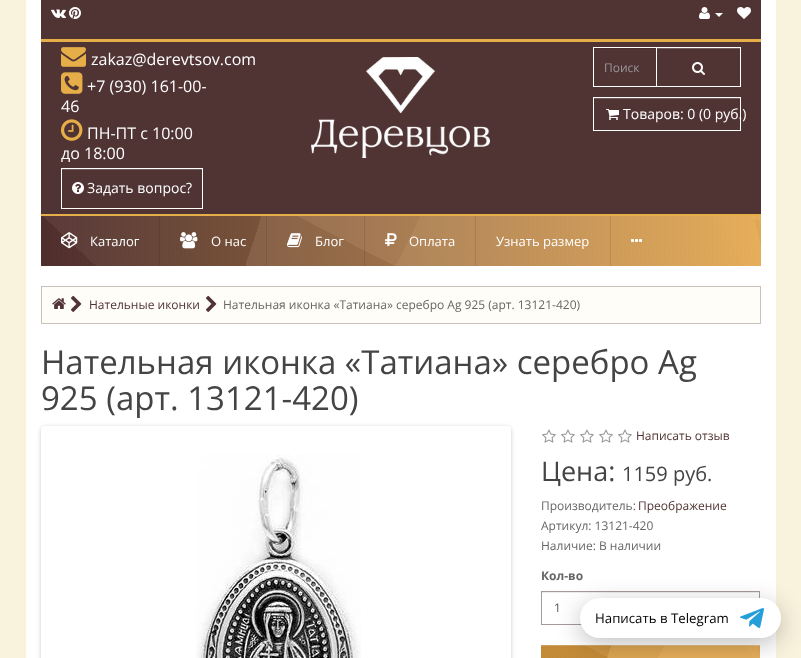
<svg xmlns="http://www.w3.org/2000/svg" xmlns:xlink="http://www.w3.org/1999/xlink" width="801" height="658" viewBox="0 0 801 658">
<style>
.cls-1{font:16px Open Sans;fill:#ffffff}
.cls-2{font:14px Open Sans;fill:#ffffff}
.cls-3{font:12px Open Sans;fill:#999999}
.cls-4{font:13px Open Sans;fill:#ffffff}
.cls-5{font:12px Open Sans;fill:#503333}
.cls-6{font:12px Open Sans;fill:#666666}
.cls-7{font:33px Open Sans;fill:#444444}
.cls-8{font:27px Open Sans;fill:#444444}
.cls-9{font:20px Open Sans;fill:#444444}
.cls-10{font:bold 12px Open Sans;fill:#666666}
.cls-11{font:12px Open Sans;fill:#555555}
.cls-12{font:13.25px Open Sans;fill:#000000}
</style>
<defs>
<linearGradient id="g1" gradientUnits="userSpaceOnUse" x1="41" y1="240" x2="761" y2="240"><stop offset="0" stop-color="#3a0303"/><stop offset="1" stop-color="#ff9800"/></linearGradient>
<linearGradient id="g2" gradientUnits="userSpaceOnUse" x1="327" y1="399" x2="475" y2="81"><stop offset="0" stop-color="#767676" stop-opacity="0.07"/><stop offset="0.98" stop-color="#767676" stop-opacity="0.07"/><stop offset="0.98" stop-color="#f8f8f8" stop-opacity="0.07"/><stop offset="1" stop-color="#f8f8f8" stop-opacity="0.07"/></linearGradient>
<linearGradient id="g3" gradientUnits="userSpaceOnUse" x1="486" y1="74" x2="316" y2="406"><stop offset="0" stop-color="#b3b3b3" stop-opacity="0.1"/><stop offset="0.57" stop-color="#b3b3b3" stop-opacity="0.1"/><stop offset="0.57" stop-color="#0b0b0b" stop-opacity="0.1"/><stop offset="1" stop-color="#0b0b0b" stop-opacity="0.1"/></linearGradient>
<linearGradient id="g4" gradientUnits="userSpaceOnUse" x1="105" y1="391" x2="697" y2="89"><stop offset="0" stop-color="#d3d3d3" stop-opacity="0.1"/><stop offset="0.94" stop-color="#d3d3d3" stop-opacity="0.1"/><stop offset="0.94" stop-color="#e9e9e9" stop-opacity="0.1"/><stop offset="1" stop-color="#e9e9e9" stop-opacity="0.1"/></linearGradient>
<linearGradient id="g5" gradientUnits="userSpaceOnUse" x1="221" y1="433" x2="581" y2="47"><stop offset="0" stop-color="#111111" stop-opacity="0.09"/><stop offset="0.07" stop-color="#111111" stop-opacity="0.09"/><stop offset="0.07" stop-color="#9f9f9f" stop-opacity="0.09"/><stop offset="1" stop-color="#9f9f9f" stop-opacity="0.09"/></linearGradient>
<linearGradient id="g6" gradientUnits="userSpaceOnUse" x1="751" y1="166" x2="51" y2="314"><stop offset="0" stop-color="#676767" stop-opacity="0.07"/><stop offset="0.01" stop-color="#676767" stop-opacity="0.07"/><stop offset="0.01" stop-color="#d1d1d1" stop-opacity="0.07"/><stop offset="1" stop-color="#d1d1d1" stop-opacity="0.07"/></linearGradient>
<linearGradient id="g7" gradientUnits="userSpaceOnUse" x1="100" y1="93" x2="702" y2="387"><stop offset="0" stop-color="#656565" stop-opacity="0.06"/><stop offset="0.51" stop-color="#656565" stop-opacity="0.06"/><stop offset="0.51" stop-color="#e7e7e7" stop-opacity="0.06"/><stop offset="1" stop-color="#e7e7e7" stop-opacity="0.06"/></linearGradient>
<linearGradient id="g8" gradientUnits="userSpaceOnUse" x1="68" y1="132" x2="734" y2="348"><stop offset="0" stop-color="#3e3e3e" stop-opacity="0.09"/><stop offset="0.3" stop-color="#3e3e3e" stop-opacity="0.09"/><stop offset="0.3" stop-color="#eaeaea" stop-opacity="0.09"/><stop offset="1" stop-color="#eaeaea" stop-opacity="0.09"/></linearGradient>
<clipPath id="clip1"><path d="M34 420H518V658H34ZM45 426H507C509 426 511 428 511 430V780C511 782 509 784 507 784H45C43 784 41 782 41 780V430C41 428 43 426 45 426Z" clip-rule="evenodd"/></clipPath>
<linearGradient id="g9" gradientUnits="userSpaceOnUse" x1="622" y1="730" x2="679" y2="607"><stop offset="0" stop-color="#f59608"/><stop offset="0.98" stop-color="#f59608"/><stop offset="0.98" stop-color="#ff9f11"/><stop offset="1" stop-color="#ff9f11"/></linearGradient>
<linearGradient id="g10" gradientUnits="userSpaceOnUse" x1="683" y1="606" x2="618" y2="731"><stop offset="0" stop-color="#b3b3b3" stop-opacity="0.1"/><stop offset="0.57" stop-color="#b3b3b3" stop-opacity="0.1"/><stop offset="0.57" stop-color="#0b0b0b" stop-opacity="0.1"/><stop offset="1" stop-color="#0b0b0b" stop-opacity="0.1"/></linearGradient>
<linearGradient id="g11" gradientUnits="userSpaceOnUse" x1="554" y1="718" x2="747" y2="619"><stop offset="0" stop-color="#d3d3d3" stop-opacity="0.1"/><stop offset="0.94" stop-color="#d3d3d3" stop-opacity="0.1"/><stop offset="0.94" stop-color="#e9e9e9" stop-opacity="0.1"/><stop offset="1" stop-color="#e9e9e9" stop-opacity="0.1"/></linearGradient>
<linearGradient id="g12" gradientUnits="userSpaceOnUse" x1="588" y1="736" x2="713" y2="601"><stop offset="0" stop-color="#111111" stop-opacity="0.09"/><stop offset="0.07" stop-color="#111111" stop-opacity="0.09"/><stop offset="0.07" stop-color="#9f9f9f" stop-opacity="0.09"/><stop offset="1" stop-color="#9f9f9f" stop-opacity="0.09"/></linearGradient>
<linearGradient id="g13" gradientUnits="userSpaceOnUse" x1="760" y1="645" x2="541" y2="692"><stop offset="0" stop-color="#676767" stop-opacity="0.07"/><stop offset="0.01" stop-color="#676767" stop-opacity="0.07"/><stop offset="0.01" stop-color="#d1d1d1" stop-opacity="0.07"/><stop offset="1" stop-color="#d1d1d1" stop-opacity="0.07"/></linearGradient>
<linearGradient id="g14" gradientUnits="userSpaceOnUse" x1="553" y1="621" x2="748" y2="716"><stop offset="0" stop-color="#656565" stop-opacity="0.06"/><stop offset="0.51" stop-color="#656565" stop-opacity="0.06"/><stop offset="0.51" stop-color="#e7e7e7" stop-opacity="0.06"/><stop offset="1" stop-color="#e7e7e7" stop-opacity="0.06"/></linearGradient>
<linearGradient id="g15" gradientUnits="userSpaceOnUse" x1="545" y1="634" x2="756" y2="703"><stop offset="0" stop-color="#3e3e3e" stop-opacity="0.09"/><stop offset="0.3" stop-color="#3e3e3e" stop-opacity="0.09"/><stop offset="0.3" stop-color="#eaeaea" stop-opacity="0.09"/><stop offset="1" stop-color="#eaeaea" stop-opacity="0.09"/></linearGradient>
</defs>
<rect width="100%" height="100%" fill="#f9f3de"/>
<rect fill="#ffffff" x="26" y="0" width="750" height="658"/>
<rect fill="#503333" x="41" y="0" width="720" height="39"/>
<rect fill="#e6ae48" x="41" y="39" width="720" height="3"/>
<image xlink:href="image0.png" x="51" y="9" width="15" height="9"/>
<image xlink:href="image1.png" x="69" y="7" width="12" height="12"/>
<image xlink:href="image2.png" x="699" y="7" width="11" height="12"/>
<path fill="#ffffff" d="M715 13H723L719 17Z"/>
<image xlink:href="image3.png" x="737" y="7" width="14" height="12"/>
<rect fill="#503333" x="41" y="42" width="720" height="172"/>
<image xlink:href="image4.png" x="61" y="47" width="25" height="20"/>
<image xlink:href="image5.png" x="61" y="72" width="22" height="22"/>
<image xlink:href="image6.png" x="61" y="119" width="22" height="22"/>
<rect fill="#735c5c" x="62" y="169" width="140" height="1"/>
<rect fill="none" stroke="#ffffff" x="61.5" y="168.5" width="141" height="40"/>
<image xlink:href="image7.png" x="72" y="182" width="12" height="12"/>
<image xlink:href="image8.png" x="311" y="57" width="179" height="101"/>
<rect fill="#4a2f2f" x="594" y="48" width="62" height="1"/>
<rect fill="none" stroke="#ffffff" x="593.5" y="47.5" width="63" height="39"/>
<rect fill="#735c5c" x="657" y="48" width="83" height="1"/>
<rect fill="none" stroke="#ffffff" x="656.5" y="47.5" width="84" height="39"/>
<image xlink:href="image9.png" x="692" y="62" width="13" height="13"/>
<rect fill="#735c5c" x="594" y="98" width="146" height="1"/>
<rect fill="none" stroke="#ffffff" x="593.5" y="97.5" width="147" height="33"/>
<image xlink:href="image10.png" x="606" y="109" width="13" height="11"/>
<rect fill="url(#g1)" x="41" y="216" width="720" height="50"/>
<rect fill="url(#g2)" x="41" y="216" width="720" height="50"/>
<rect fill="url(#g3)" x="41" y="216" width="720" height="50"/>
<rect fill="url(#g4)" x="41" y="216" width="720" height="50"/>
<rect fill="url(#g5)" x="41" y="216" width="720" height="50"/>
<rect fill="url(#g6)" x="41" y="216" width="720" height="50"/>
<rect fill="url(#g7)" x="41" y="216" width="720" height="50"/>
<rect fill="url(#g8)" x="76" y="216" width="685" height="50"/>
<rect fill="#e6ae48" x="41" y="214" width="720" height="2"/>
<image xlink:href="image11.png" x="61" y="232" width="17" height="17"/>
<rect fill="#5e4034" x="159" y="216" width="1" height="50"/>
<image xlink:href="image12.png" x="180" y="232" width="18" height="17"/>
<rect fill="#7a5841" x="266" y="216" width="1" height="50"/>
<image xlink:href="image13.png" x="287" y="233" width="16" height="15"/>
<rect fill="#000000" fill-opacity="0.1" x="364" y="216" width="1" height="50"/>
<image xlink:href="image14.png" x="385" y="233" width="12" height="13"/>
<rect fill="#a77e51" x="475" y="216" width="1" height="50"/>
<rect fill="#b98b51" x="610" y="216" width="1" height="50"/>
<image xlink:href="image15.png" x="631" y="239" width="11" height="3"/>
<rect fill="#fefdf8" stroke="#cac0bd" x="41.5" y="286.5" width="719" height="37"/>
<image xlink:href="image16.png" x="52" y="298" width="14" height="11"/>
<image xlink:href="image17.png" x="70" y="295" width="12" height="17"/>
<image xlink:href="image17.png" x="205" y="295" width="12" height="17"/>
<g clip-path="url(#clip1)">
<rect fill="#000000" fill-opacity="0.2" filter="blur(2px)" x="41" y="427" width="470" height="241" rx="4"/>
</g>
<rect fill="none" stroke="#ffffff" stroke-width="4" x="43" y="428" width="466" height="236" rx="2"/>
<image xlink:href="image18.png" x="196" y="454" width="165" height="204"/>
<image xlink:href="image19.png" x="542" y="429" width="14" height="14"/>
<image xlink:href="image19.png" x="561" y="429" width="14" height="14"/>
<image xlink:href="image19.png" x="580" y="429" width="14" height="14"/>
<image xlink:href="image19.png" x="599" y="429" width="14" height="14"/>
<image xlink:href="image19.png" x="618" y="429" width="14" height="14"/>
<rect fill="#ececec" x="542" y="592" width="217" height="1"/>
<rect fill="none" stroke="#a89999" x="541.5" y="591.5" width="218" height="33"/>
<rect fill="url(#g9)" x="541" y="645" width="219" height="13"/>
<rect fill="url(#g10)" x="541" y="645" width="219" height="13"/>
<rect fill="url(#g11)" x="541" y="645" width="219" height="13"/>
<rect fill="url(#g12)" x="541" y="645" width="219" height="13"/>
<rect fill="url(#g13)" x="541" y="645" width="219" height="13"/>
<rect fill="url(#g14)" x="541" y="645" width="219" height="13"/>
<rect fill="url(#g15)" x="541" y="645" width="219" height="13"/>
<rect fill="#ffffff" fill-opacity="0.2" x="541" y="645" width="219" height="1"/>
<rect fill="#000000" fill-opacity="0.25" filter="blur(12.5px)" x="580" y="604" width="201" height="40" rx="20"/>
<rect fill="#ffffff" x="580" y="598" width="201" height="40" rx="20"/>
<image xlink:href="image20.png" x="740" y="608" width="24" height="20"/>
<text class="cls-1" x="91" y="65">zakaz@derevtsov.com</text>
<text class="cls-1" x="87" y="92">+7 (930) 161-00-</text>
<text class="cls-1" x="61" y="112">46</text>
<text class="cls-1" x="87" y="139">ПН-ПТ с 10:00</text>
<text class="cls-1" x="61" y="159">до 18:00</text>
<text class="cls-2" x="87" y="193">Задать вопрос?</text>
<text class="cls-3" x="604" y="72">Поиск</text>
<text class="cls-2" x="623" y="119">Товаров: 0 (0 руб.)</text>
<text class="cls-4" x="90" y="246">Каталог</text>
<text class="cls-4" x="211" y="246">О нас</text>
<text class="cls-4" x="315" y="246">Блог</text>
<text class="cls-4" x="409" y="246">Оплата</text>
<text class="cls-4" x="496" y="246">Узнать размер</text>
<text class="cls-5" x="89" y="309">Нательные иконки</text>
<text class="cls-6" x="223" y="309">Нательная иконка «Татиана» серебро Ag 925 (арт. 13121-420)</text>
<text class="cls-7"><tspan x="41" y="374">Нательная иконка «Татиана» серебро Ag</tspan><tspan x="41" y="410">925 (арт. 13121-420)</tspan></text>
<text class="cls-5" x="636" y="440">Написать отзыв</text>
<text class="cls-8" x="541" y="481">Цена:</text>
<text class="cls-9" x="622" y="481">1159 руб.</text>
<text class="cls-6" x="541" y="510">Производитель:</text>
<text class="cls-5" x="638" y="510">Преображение</text>
<text class="cls-6"><tspan x="541" y="530">Артикул: 13121-420</tspan><tspan x="541" y="550">Наличие: В наличии</tspan></text>
<text class="cls-10" x="541" y="580">Кол-во</text>
<text class="cls-11" x="554" y="612">1</text>
<text class="cls-12" x="595" y="623">Написать в Telegram</text>
</svg>
